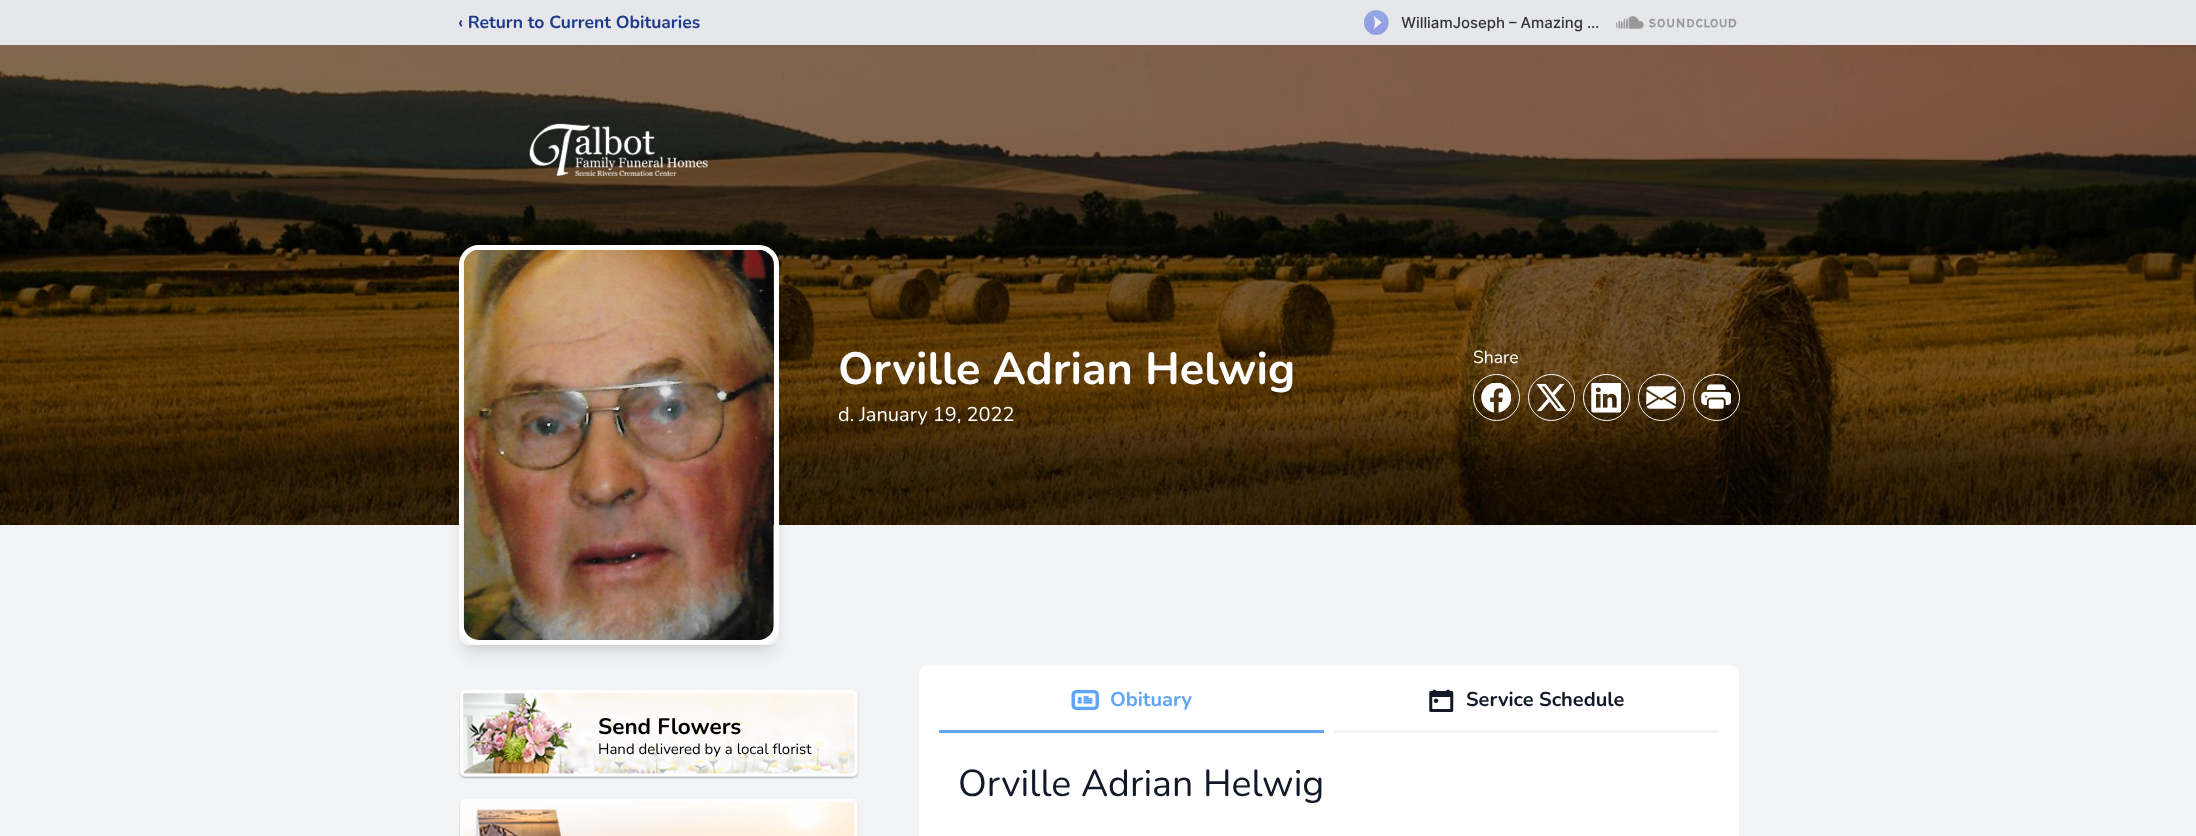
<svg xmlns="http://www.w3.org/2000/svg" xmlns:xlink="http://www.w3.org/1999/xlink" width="2196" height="836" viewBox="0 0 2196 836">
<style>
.cls-1{font:bold 17.5px Nunito;fill:#1e3a8a}
.cls-2{font:bold 45px Nunito;fill:#ffffff}
.cls-3{font:20px Nunito;fill:#ffffff}
.cls-4{font:17.5px Nunito;fill:#ffffff}
.cls-5{font:bold 22.5px Nunito;fill:#000000}
.cls-6{font:15px Nunito;fill:#000000}
.cls-7{font:bold 20px Nunito;fill:#60a5fa}
.cls-8{font:bold 20px Nunito;fill:#111827}
.cls-9{font:37.5px Nunito;fill:#111827}
</style>
<defs>
<clipPath id="clip1"><path d="M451 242H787V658H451ZM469 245H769C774.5 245 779 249.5 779 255V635C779 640.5 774.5 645 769 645H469C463.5 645 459 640.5 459 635V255C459 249.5 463.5 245 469 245Z" clip-rule="evenodd"/></clipPath>
<clipPath id="clip2"><path d="M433 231H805V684H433ZM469 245H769C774.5 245 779 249.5 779 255V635C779 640.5 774.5 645 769 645H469C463.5 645 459 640.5 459 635V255C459 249.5 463.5 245 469 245Z" clip-rule="evenodd"/></clipPath>
</defs>
<rect width="100%" height="100%" fill="#f3f4f6"/>
<rect fill="#e5e7eb" x="0" y="0" width="2196" height="45"/>
<image xlink:href="image0.png" x="1364" y="10" width="373" height="25"/>
<image xlink:href="image1.png" x="0" y="45" width="2196" height="480"/>
<image xlink:href="image2.png" x="529" y="123" width="179" height="53"/>
<g clip-path="url(#clip1)">
<rect fill="#000000" fill-opacity="0.1" filter="blur(4px)" x="464" y="255" width="310" height="390" rx="5"/>
</g>
<g clip-path="url(#clip2)">
<rect fill="#000000" fill-opacity="0.1" filter="blur(9.5px)" x="463" y="261" width="312" height="393" rx="6"/>
</g>
<rect fill="none" stroke="#ffffff" stroke-width="5" x="461.5" y="247.5" width="315" height="395" rx="17.5"/>
<image xlink:href="image3.png" x="463" y="250" width="311" height="390"/>
<circle fill="none" stroke="#ffffff" cx="1496.5" cy="397.5" r="23"/>
<circle fill="#000000" fill-opacity="0.2" cx="1496.5" cy="397.5" r="22.5"/>
<image xlink:href="image4.png" x="1481" y="383" width="30" height="30"/>
<circle fill="none" stroke="#ffffff" cx="1551.5" cy="397.5" r="23"/>
<circle fill="#000000" fill-opacity="0.2" cx="1551.5" cy="397.5" r="22.5"/>
<image xlink:href="image5.png" x="1536" y="383" width="30" height="29"/>
<circle fill="none" stroke="#ffffff" cx="1606.5" cy="397.5" r="23"/>
<circle fill="#000000" fill-opacity="0.2" cx="1606.5" cy="397.5" r="22.5"/>
<image xlink:href="image6.png" x="1591" y="383" width="30" height="30"/>
<circle fill="none" stroke="#ffffff" cx="1661.5" cy="397.5" r="23"/>
<circle fill="#000000" fill-opacity="0.2" cx="1661.5" cy="397.5" r="22.5"/>
<image xlink:href="image7.png" x="1646" y="386" width="30" height="23"/>
<circle fill="none" stroke="#ffffff" cx="1716.5" cy="397.5" r="23"/>
<circle fill="#000000" fill-opacity="0.2" cx="1716.5" cy="397.5" r="22.5"/>
<image xlink:href="image8.png" x="1701" y="384" width="30" height="25"/>
<image xlink:href="image9.png" x="459" y="690" width="400" height="89"/>
<image xlink:href="image10.png" x="459" y="799" width="400" height="37"/>
<rect fill="#ffffff" x="919" y="665" width="820" height="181" rx="10"/>
<rect fill="#60a5fa" x="939" y="730" width="385" height="3"/>
<image xlink:href="image11.png" x="1071" y="690" width="28" height="20"/>
<rect fill="#f3f4f6" x="1334" y="730" width="385" height="3"/>
<image xlink:href="image12.png" x="1429" y="689" width="25" height="23"/>
<text class="cls-1" x="458" y="28">‹ Return to Current Obituaries</text>
<text class="cls-2" x="838" y="384">Orville Adrian Helwig</text>
<text class="cls-3" x="838" y="421">d. January 19, 2022</text>
<text class="cls-4" x="1473" y="363">Share</text>
<text class="cls-5" x="598" y="734">Send Flowers</text>
<text class="cls-6" x="598" y="754">Hand delivered by a local florist</text>
<text class="cls-7" x="1110" y="706">Obituary</text>
<text class="cls-8" x="1466" y="706">Service Schedule</text>
<text class="cls-9" x="958" y="796">Orville Adrian Helwig</text>
</svg>
